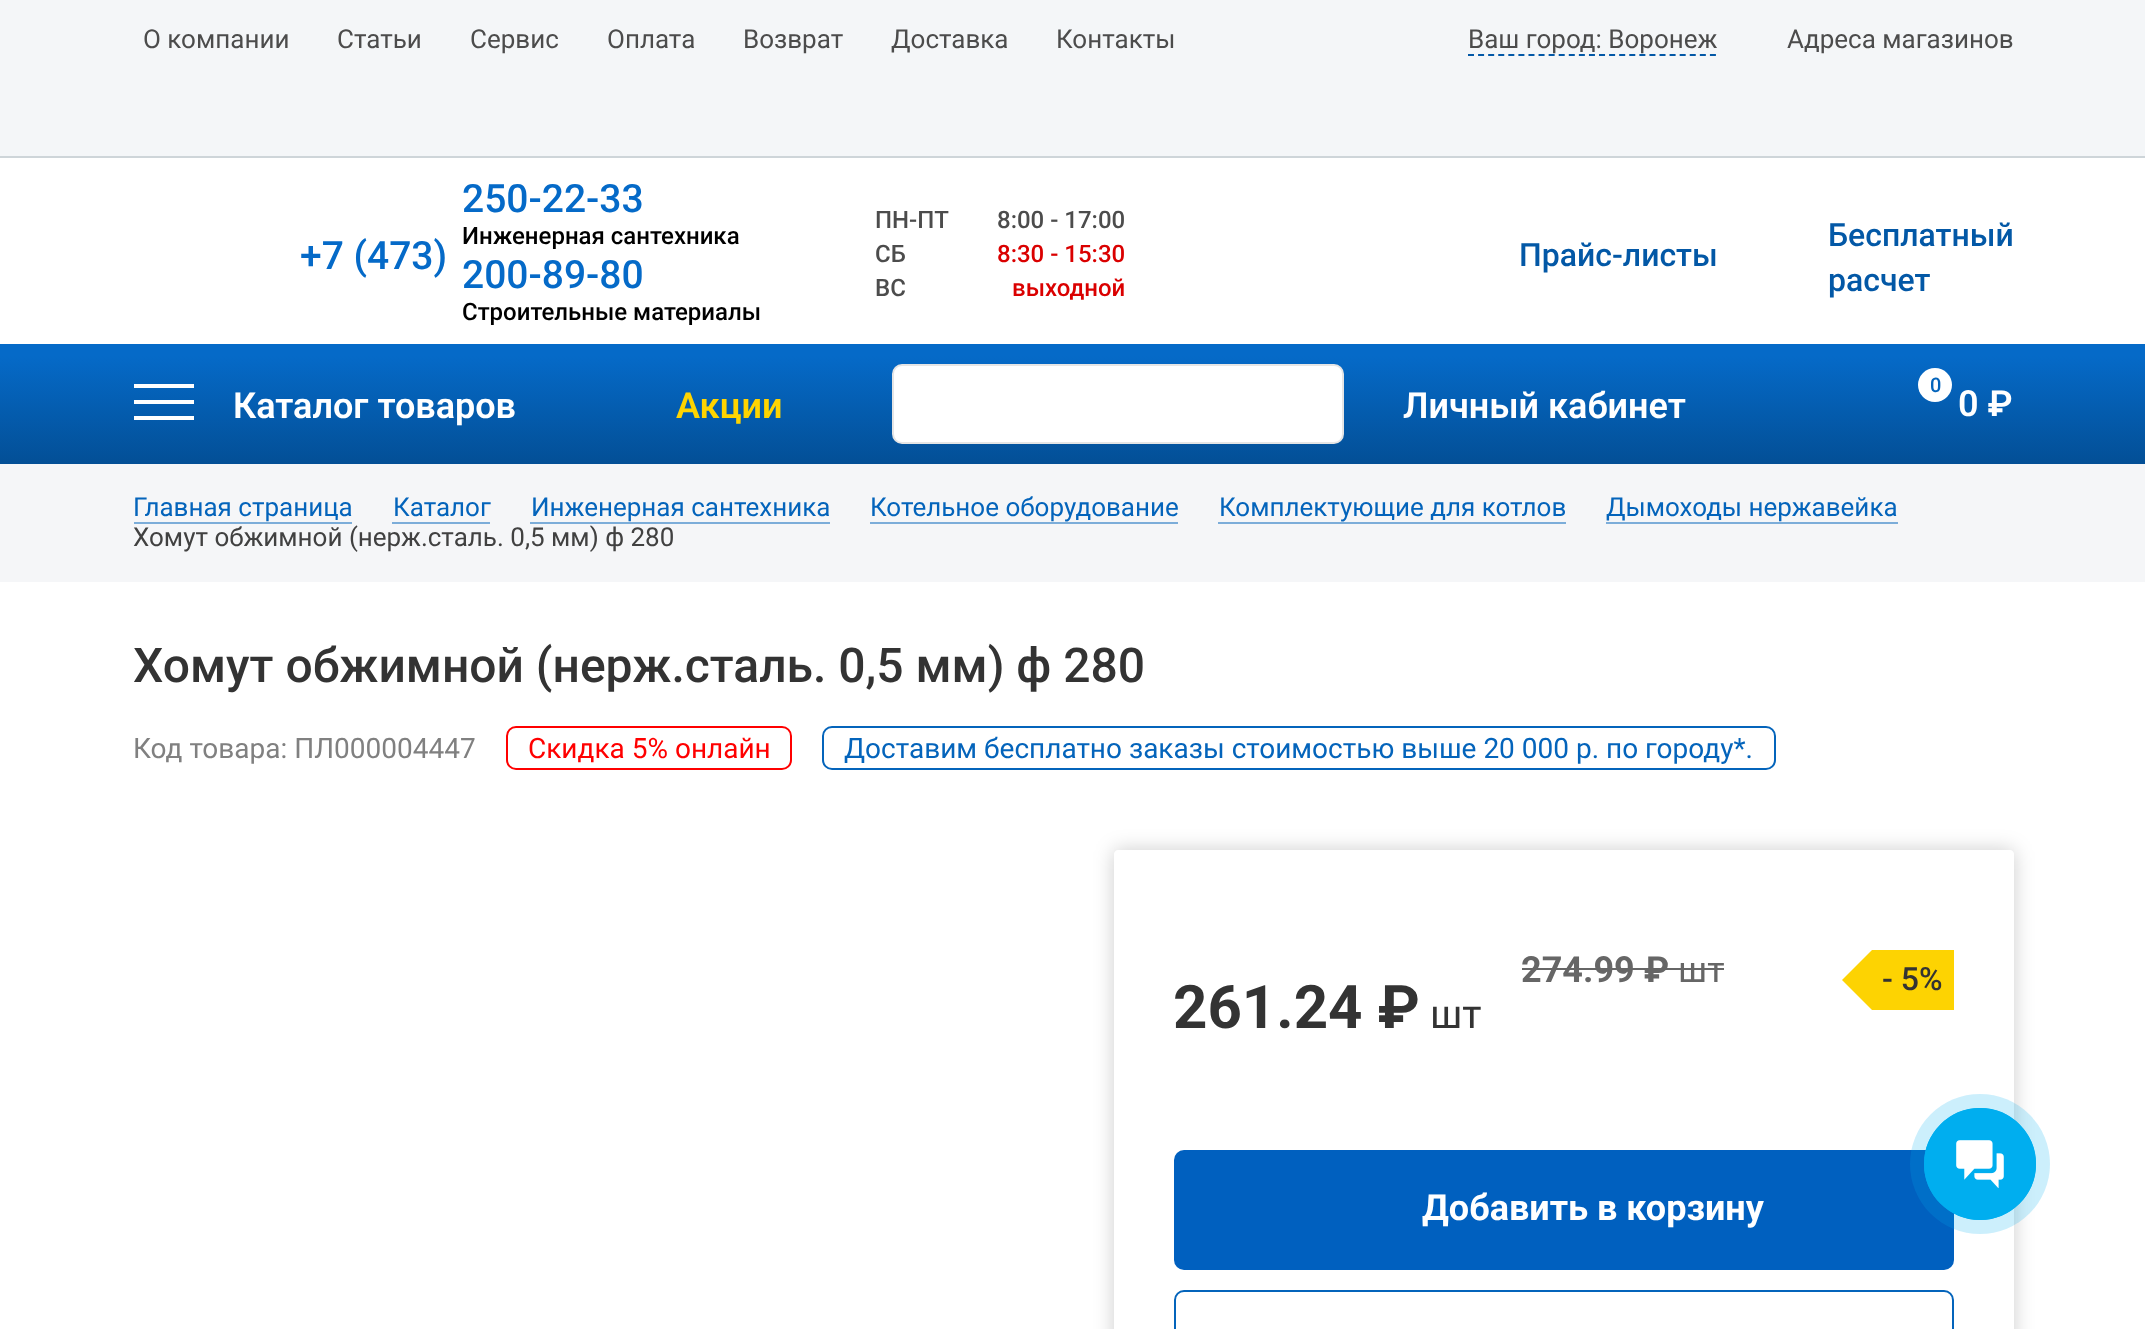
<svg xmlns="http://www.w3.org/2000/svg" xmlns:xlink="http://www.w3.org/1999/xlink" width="2145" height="1329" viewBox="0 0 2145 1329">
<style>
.cls-1{font:26px Roboto;fill:#4c4c4c}
.cls-2{font:500 39px Roboto;fill:#056ac8}
.cls-3{font:500 24px Roboto;fill:#000000}
.cls-4{font:500 24px Roboto;fill:#4c4c4c}
.cls-5{font:500 24px Roboto;fill:#da0000}
.cls-6{font:500 32px Roboto;fill:#0358a6}
.cls-7{font:600 36px Roboto;fill:#ffffff}
.cls-8{font:600 36px Roboto;fill:#ffd400}
.cls-9{font:500 20px Roboto;fill:#0464bb}
.cls-10{font:26px Roboto;fill:#0464bb}
.cls-11{font:26px Roboto;fill:#414141}
.cls-12{font:500 48px Roboto;fill:#333333}
.cls-13{font:28px Roboto;fill:#808080}
.cls-14{font:28px Roboto;fill:#ff0000}
.cls-15{font:28px Roboto;fill:#0464bb}
.cls-16{font:bold 36px Roboto;fill:#666666}
.cls-17{font:36px Roboto;fill:#666666}
.cls-18{font:500 32px Roboto;fill:#333333}
.cls-19{font:bold 60px Roboto;fill:#333333}
.cls-20{font:40px Roboto;fill:#333333}
.cls-21{font:bold 36px Roboto;fill:#ffffff}
</style>
<defs>
<linearGradient id="g1" gradientUnits="userSpaceOnUse" x1="1073" y1="344" x2="1073" y2="464"><stop offset="0" stop-color="#056ac8"/><stop offset="0.1" stop-color="#056ac8"/><stop offset="1" stop-color="#034f96"/></linearGradient>
<clipPath id="clip1"><path d="M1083 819H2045V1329H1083ZM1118 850H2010C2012 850 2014 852 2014 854V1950C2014 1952 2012 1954 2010 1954H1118C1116 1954 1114 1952 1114 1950V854C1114 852 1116 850 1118 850Z" clip-rule="evenodd"/></clipPath>
</defs>
<rect width="100%" height="100%" fill="#ffffff"/>
<rect fill="#f4f6f8" x="0" y="0" width="2145" height="156"/>
<rect fill="#ced5d9" x="0" y="156" width="2145" height="2"/>
<path fill="none" stroke="#0358a6" stroke-width="2" stroke-dasharray="6 4.08" d="M1468 55H1716"/>
<rect fill="url(#g1)" x="0" y="344" width="2145" height="120"/>
<rect fill="#ffffff" x="134" y="384" width="60" height="4"/>
<rect fill="#ffffff" x="134" y="400" width="60" height="4"/>
<rect fill="#ffffff" x="134" y="416" width="60" height="4"/>
<rect fill="#ffffff" stroke="#e5e5e5" stroke-width="2" x="893" y="365" width="450" height="78" rx="9"/>
<circle fill="#ffffff" cx="1935" cy="385" r="17"/>
<rect fill="#f5f6f8" x="0" y="464" width="2145" height="118"/>
<rect fill="#7cadd9" x="134" y="522" width="218" height="2"/>
<rect fill="#7cadd9" x="392" y="522" width="98" height="2"/>
<rect fill="#7cadd9" x="530" y="522" width="300" height="2"/>
<rect fill="#7cadd9" x="870" y="522" width="308" height="2"/>
<rect fill="#7cadd9" x="1218" y="522" width="348" height="2"/>
<rect fill="#7cadd9" x="1606" y="522" width="292" height="2"/>
<rect fill="none" stroke="#ff0000" stroke-width="2" x="507" y="727" width="284" height="42" rx="9"/>
<rect fill="none" stroke="#0464bb" stroke-width="2" x="823" y="727" width="952" height="42" rx="9"/>
<g clip-path="url(#clip1)">
<rect fill="#000000" fill-opacity="0.2" filter="blur(10px)" x="1114" y="850" width="900" height="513" rx="4"/>
</g>
<rect fill="#666666" x="1522" y="968" width="148" height="2"/>
<rect fill="#666666" x="1670" y="968" width="54" height="2"/>
<rect fill="#fdd302" x="1872" y="950" width="82" height="60"/>
<path fill="#fdd302" d="M1872 950V1010L1842 980Z"/>
<rect fill="#0060bf" x="1174" y="1150" width="780" height="120" rx="10"/>
<rect fill="none" stroke="#0464bb" stroke-width="2" x="1175" y="1291" width="778" height="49" rx="9"/>
<circle fill="#00aeef" fill-opacity="0.2" cx="1980" cy="1164" r="70"/>
<circle fill="none" stroke="#00aeef" stroke-width="2" cx="1980" cy="1164" r="55"/>
<circle fill="#00aeef" cx="1980" cy="1164" r="56"/>
<image xlink:href="image0.png" x="1956" y="1140" width="48" height="48"/>
<text class="cls-1" x="143" y="48">О компании</text>
<text class="cls-1" x="337" y="48">Статьи</text>
<text class="cls-1" x="470" y="48">Сервис</text>
<text class="cls-1" x="607" y="48">Оплата</text>
<text class="cls-1" x="743" y="48">Возврат</text>
<text class="cls-1" x="891" y="48">Доставка</text>
<text class="cls-1" x="1056" y="48">Контакты</text>
<text class="cls-1" x="1468" y="48">Ваш город: Воронеж</text>
<text class="cls-1" x="1787" y="48">Адреса магазинов</text>
<text class="cls-2" x="300" y="269">+7 (473)</text>
<text class="cls-2" x="462" y="212">250-22-33</text>
<text class="cls-3" x="462" y="244">Инженерная сантехника</text>
<text class="cls-2" x="462" y="288">200-89-80</text>
<text class="cls-3" x="462" y="320">Строительные материалы</text>
<text class="cls-4" x="875" y="228">ПН-ПТ</text>
<text class="cls-4" x="997" y="228">8:00 - 17:00</text>
<text class="cls-4" x="875" y="262">CБ</text>
<text class="cls-5" x="997" y="262">8:30 - 15:30</text>
<text class="cls-4" x="875" y="296">ВС</text>
<text class="cls-5" x="1012" y="296">выходной</text>
<text class="cls-6" x="1519" y="266">Прайс-листы</text>
<text class="cls-6"><tspan x="1828" y="246">Бесплатный</tspan><tspan x="1828" y="291">расчет</tspan></text>
<text class="cls-7" x="233" y="418">Каталог товаров</text>
<text class="cls-8" x="676" y="418">Акции</text>
<text class="cls-7" x="1403" y="418">Личный кабинет</text>
<text class="cls-9" x="1930" y="392">0</text>
<text class="cls-7" x="1958" y="416">0 ₽</text>
<text class="cls-10" x="133" y="516">Главная страница</text>
<text class="cls-10" x="393" y="516">Каталог</text>
<text class="cls-10" x="531" y="516">Инженерная сантехника</text>
<text class="cls-10" x="870" y="516">Котельное оборудование</text>
<text class="cls-10" x="1219" y="516">Комплектующие для котлов</text>
<text class="cls-10" x="1606" y="516">Дымоходы нержавейка</text>
<text class="cls-11" x="133" y="546">Хомут обжимной (нерж.сталь. 0,5 мм) ф 280</text>
<text class="cls-12" x="133" y="682">Хомут обжимной (нерж.сталь. 0,5 мм) ф 280</text>
<text class="cls-13" x="133" y="758">Код товара: ПЛ000004447</text>
<text class="cls-14" x="528" y="758">Скидка 5% онлайн</text>
<text class="cls-15" x="844" y="758">Доставим бесплатно заказы стоимостью выше 20 000 р. по городу*.</text>
<text class="cls-16" x="1521" y="982">274.99 ₽</text>
<text class="cls-17" x="1678" y="982">шт</text>
<text class="cls-18" x="1882" y="990">- 5%</text>
<text class="cls-19" x="1173" y="1028">261.24 ₽</text>
<text class="cls-20" x="1430" y="1028">шт</text>
<text class="cls-21" x="1422" y="1220">Добавить в корзину</text>
</svg>
